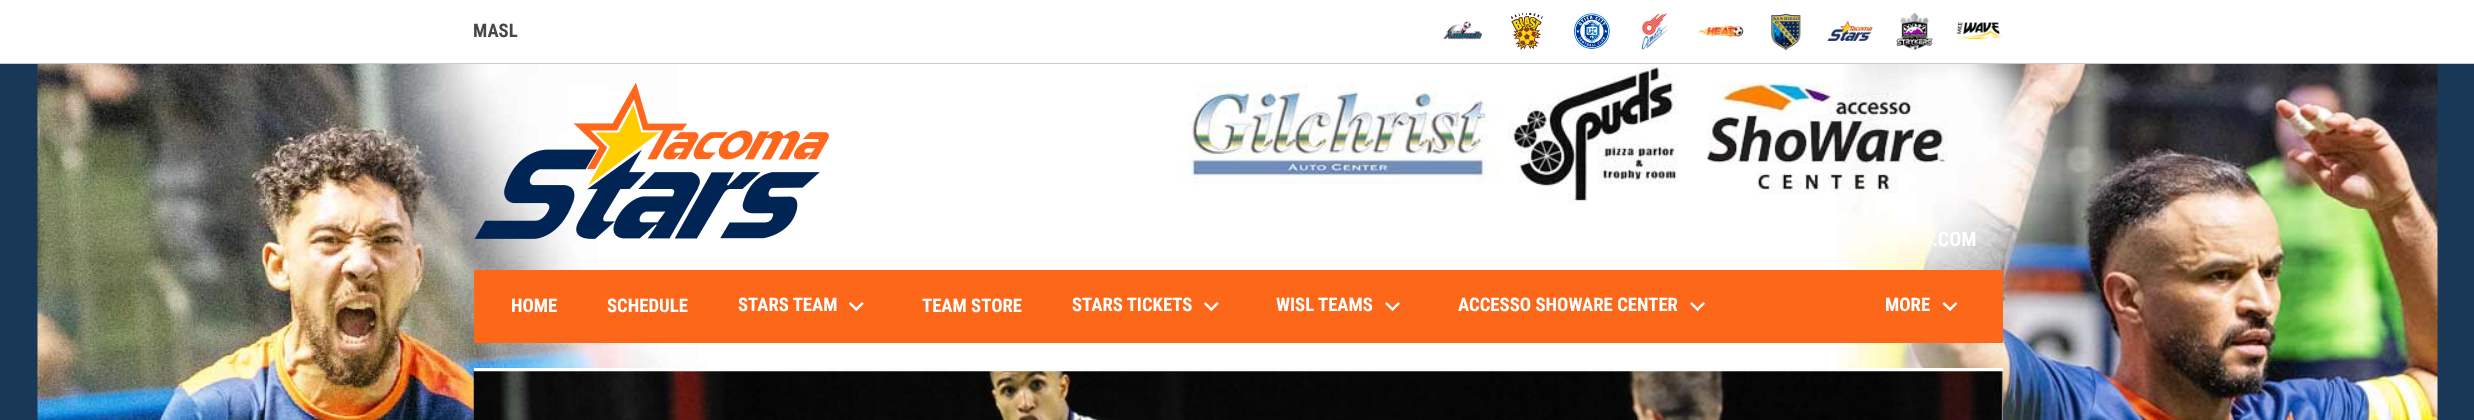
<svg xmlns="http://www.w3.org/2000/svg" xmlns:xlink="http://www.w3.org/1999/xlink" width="2474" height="420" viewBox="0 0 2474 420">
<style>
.cls-1{font:bold 18.75px Roboto Condensed;fill:#484848}
.cls-2{font:bold 20px Roboto Condensed;fill:#ffffff}
.cls-3{font:bold 18.75px Roboto Condensed;fill:#ffffff}
</style>
<rect width="100%" height="100%" fill="#193757"/>
<rect fill="#ffffff" x="0" y="0" width="2474" height="63"/>
<rect fill="#cccccc" x="0" y="63" width="2474" height="1"/>
<image xlink:href="image0.png" x="1443" y="21" width="40" height="19"/>
<image xlink:href="image1.png" x="1510" y="13" width="33" height="37"/>
<image xlink:href="image2.png" x="1574" y="13" width="36" height="36"/>
<image xlink:href="image3.png" x="1641" y="13" width="30" height="37"/>
<image xlink:href="image4.png" x="1697" y="25" width="47" height="12"/>
<image xlink:href="image5.png" x="1771" y="13" width="30" height="37"/>
<image xlink:href="image6.png" x="1827" y="21" width="46" height="20"/>
<image xlink:href="image7.png" x="1896" y="12" width="37" height="38"/>
<image xlink:href="image8.png" x="1956" y="22" width="47" height="18"/>
<image xlink:href="image9.png" x="37" y="64" width="2401" height="356"/>
<image xlink:href="image10.png" x="474" y="83" width="355" height="156"/>
<rect fill="#fc6719" x="474" y="270" width="1529" height="73"/>
<image xlink:href="image11.png" x="848" y="302" width="16" height="10"/>
<image xlink:href="image11.png" x="1203" y="302" width="16" height="10"/>
<image xlink:href="image12.png" x="1385" y="302" width="15" height="10"/>
<image xlink:href="image12.png" x="1690" y="302" width="15" height="10"/>
<image xlink:href="image13.png" x="1942" y="302" width="16" height="10"/>
<rect fill="#ffffff" x="2002" y="372" width="1" height="48"/>
<rect fill="#fdfdfc" x="474" y="368" width="1529" height="4"/>
<image xlink:href="image14.png" x="473" y="371" width="1530" height="49"/>
<text class="cls-1" x="473" y="37">MASL</text>
<text class="cls-2" x="1932" y="246">.COM</text>
<text class="cls-3" x="511" y="312">HOME</text>
<text class="cls-3" x="607" y="312">SCHEDULE</text>
<text class="cls-3" x="738" y="311">STARS TEAM</text>
<text class="cls-3" x="922" y="312">TEAM STORE</text>
<text class="cls-3" x="1072" y="311">STARS TICKETS</text>
<text class="cls-3" x="1276" y="311">WISL TEAMS</text>
<text class="cls-3" x="1458" y="311">ACCESSO SHOWARE CENTER</text>
<text class="cls-3" x="1885" y="311">MORE</text>
</svg>
